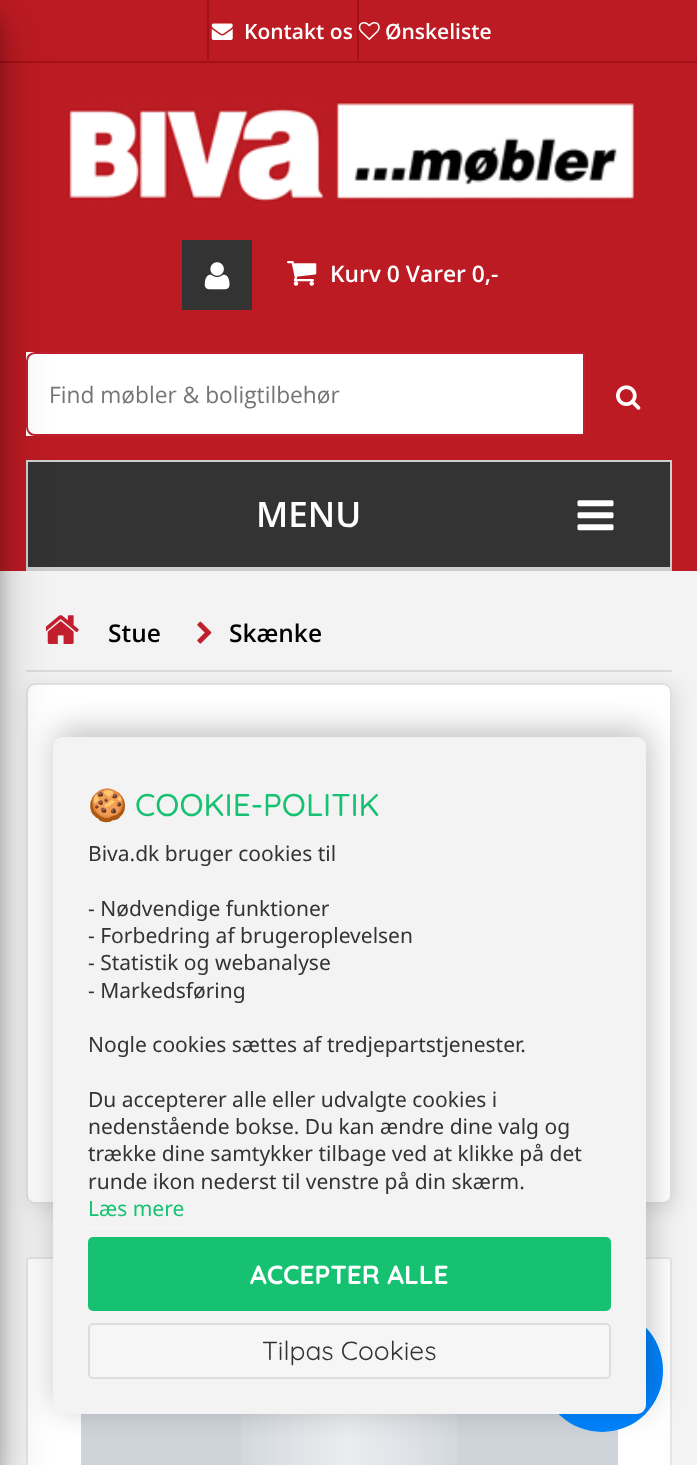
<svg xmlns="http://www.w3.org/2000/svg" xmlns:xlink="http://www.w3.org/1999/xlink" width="697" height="1465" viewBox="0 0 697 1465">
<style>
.cls-1{font:600 21px Open Sans;fill:#ffffff}
.cls-2{font:600 22.75px Open Sans;fill:#ffffff}
.cls-3{font:22.75px Open Sans;fill:#757575}
.cls-4{font:600 35px Open Sans;fill:#ffffff}
.cls-5{font:600 24.5px Open Sans;fill:#000000}
.cls-6{font:31.5px Noto Color Emoji;fill:#16c272}
.cls-7{font:500 31.5px Quicksand;fill:#16c272}
.cls-8{font:21px Noto Sans;fill:#333333}
.cls-9{font:21px Noto Sans;fill:#16c272}
.cls-10{font:bold 26.25px Quicksand;fill:#ffffff}
.cls-11{font:26.25px Quicksand;fill:#333333}
</style>
<defs>
<linearGradient id="g1" gradientUnits="userSpaceOnUse" x1="-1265" y1="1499" x2="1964" y2="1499"><stop offset="0.46" stop-color="#ffffff" stop-opacity="0"/><stop offset="0.5" stop-color="#ffffff" stop-opacity="0.35"/><stop offset="0.54" stop-color="#ffffff" stop-opacity="0"/></linearGradient>
<linearGradient id="g2" gradientUnits="userSpaceOnUse" x1="-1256" y1="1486" x2="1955" y2="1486"><stop offset="0.46" stop-color="#ffffff" stop-opacity="0"/><stop offset="0.5" stop-color="#ffffff" stop-opacity="0.35"/><stop offset="0.54" stop-color="#ffffff" stop-opacity="0"/></linearGradient>
</defs>
<rect width="100%" height="100%" fill="#f3f3f3"/>
<rect fill="#bc1b23" x="0" y="0" width="697" height="61"/>
<rect fill="#a31015" x="0" y="61" width="697" height="2"/>
<rect fill="#a31015" x="357" y="0" width="2" height="60"/>
<rect fill="#a31015" x="207" y="0" width="2" height="60"/>
<image xlink:href="image0.png" x="211" y="23" width="22" height="17"/>
<image xlink:href="image1.png" x="358" y="22" width="22" height="18"/>
<rect fill="#bc1b23" x="0" y="63" width="697" height="508"/>
<image xlink:href="image2.png" x="68" y="101" width="566" height="102"/>
<rect fill="#333333" x="182" y="240" width="70" height="70"/>
<image xlink:href="image3.png" x="204" y="262" width="26" height="28"/>
<image xlink:href="image4.png" x="287" y="261" width="30" height="25"/>
<rect fill="#ffffff" x="26" y="352" width="557" height="84"/>
<path fill="none" stroke="#c11f2e" stroke-width="2" d="M35 353H584V435H35C30.5 435 27 431.5 27 427V361C27 356.5 30.5 353 35 353Z"/>
<image xlink:href="image5.png" x="616" y="385" width="25" height="25"/>
<rect fill="#333333" stroke="#cecece" stroke-width="2" x="27" y="461" width="644" height="107"/>
<image xlink:href="image6.png" x="577" y="500" width="37" height="31"/>
<rect fill="#cecece" x="26" y="569" width="646" height="2"/>
<rect fill="#ffffff" stroke="#e6e6e6" stroke-width="2" x="27" y="1258" width="644" height="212" rx="3"/>
<rect fill="#000000" fill-opacity="0.1" filter="blur(9.5px)" x="30" y="686" width="646" height="522" rx="9"/>
<rect fill="#ffffff" x="26" y="683" width="646" height="521" rx="9"/>
<rect fill="none" stroke="#000000" stroke-opacity="0.12" stroke-width="2" x="27" y="684" width="644" height="519" rx="8"/>
<rect fill="#dbdbdb" x="26" y="670" width="646" height="2"/>
<rect fill="#000000" fill-opacity="0.22" filter="blur(9px)" x="-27" y="18" width="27" height="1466"/>
<image xlink:href="image7.png" x="46" y="615" width="33" height="29"/>
<rect fill="#000000" fill-opacity="0.25" filter="blur(24.5px)" x="-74" y="25" width="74" height="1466"/>
<rect fill="#ced4da" x="81" y="1414" width="537" height="51"/>
<rect fill="url(#g1)" x="240" y="1414" width="219" height="51"/>
<rect fill="url(#g2)" x="242" y="1414" width="215" height="51"/>
<image xlink:href="image8.png" x="197" y="621" width="15" height="23"/>
<rect fill="#0084ff" x="541" y="1309" width="122" height="123" rx="61"/>
<rect fill="#000000" fill-opacity="0.25" filter="blur(16px)" x="56" y="730" width="593" height="677" rx="9"/>
<rect fill="#f3f3f3" x="53" y="737" width="593" height="677" rx="9"/>
<path fill="none" stroke="#fcfcfc" stroke-width="1.8" stroke-dasharray="1.75 1.75" d="M87.5 1227.5H184"/>
<rect fill="#16c272" x="88" y="1237" width="523" height="74" rx="5"/>
<rect fill="#f6f6f6" stroke="#dddddd" stroke-width="2" x="89" y="1324" width="521" height="54" rx="4"/>
<text class="cls-1" x="244" y="39">Kontakt os</text>
<text class="cls-1" x="385" y="39">Ønskeliste</text>
<text class="cls-2" x="330" y="282">Kurv 0 Varer 0,-</text>
<text class="cls-3" x="49" y="403">Find møbler &amp; boligtilbehør</text>
<text class="cls-4" x="256" y="527">MENU</text>
<text class="cls-5" x="108" y="642">Stue</text>
<text class="cls-5" x="229" y="642">Skænke</text>
<text class="cls-6" x="88" y="816">🍪</text>
<text class="cls-7" x="135" y="816">COOKIE-POLITIK</text>
<text class="cls-8" x="88" y="861">Biva.dk bruger cookies til</text>
<text class="cls-8"><tspan x="88" y="916">- Nødvendige funktioner</tspan><tspan x="88" y="943">- Forbedring af brugeroplevelsen</tspan><tspan x="88" y="970">- Statistik og webanalyse</tspan><tspan x="88" y="998">- Markedsføring</tspan></text>
<text class="cls-8" x="88" y="1052">Nogle cookies sættes af tredjepartstjenester.</text>
<text class="cls-8"><tspan x="88" y="1107">Du accepterer alle eller udvalgte cookies i</tspan><tspan x="88" y="1134">nedenstående bokse. Du kan ændre dine valg og</tspan><tspan x="88" y="1161">trække dine samtykker tilbage ved at klikke på det</tspan><tspan x="88" y="1189">runde ikon nederst til venstre på din skærm.</tspan></text>
<text class="cls-9" x="88" y="1216">Læs mere</text>
<text class="cls-10" x="250" y="1284">ACCEPTER ALLE</text>
<text class="cls-11" x="262" y="1360">Tilpas Cookies</text>
</svg>
